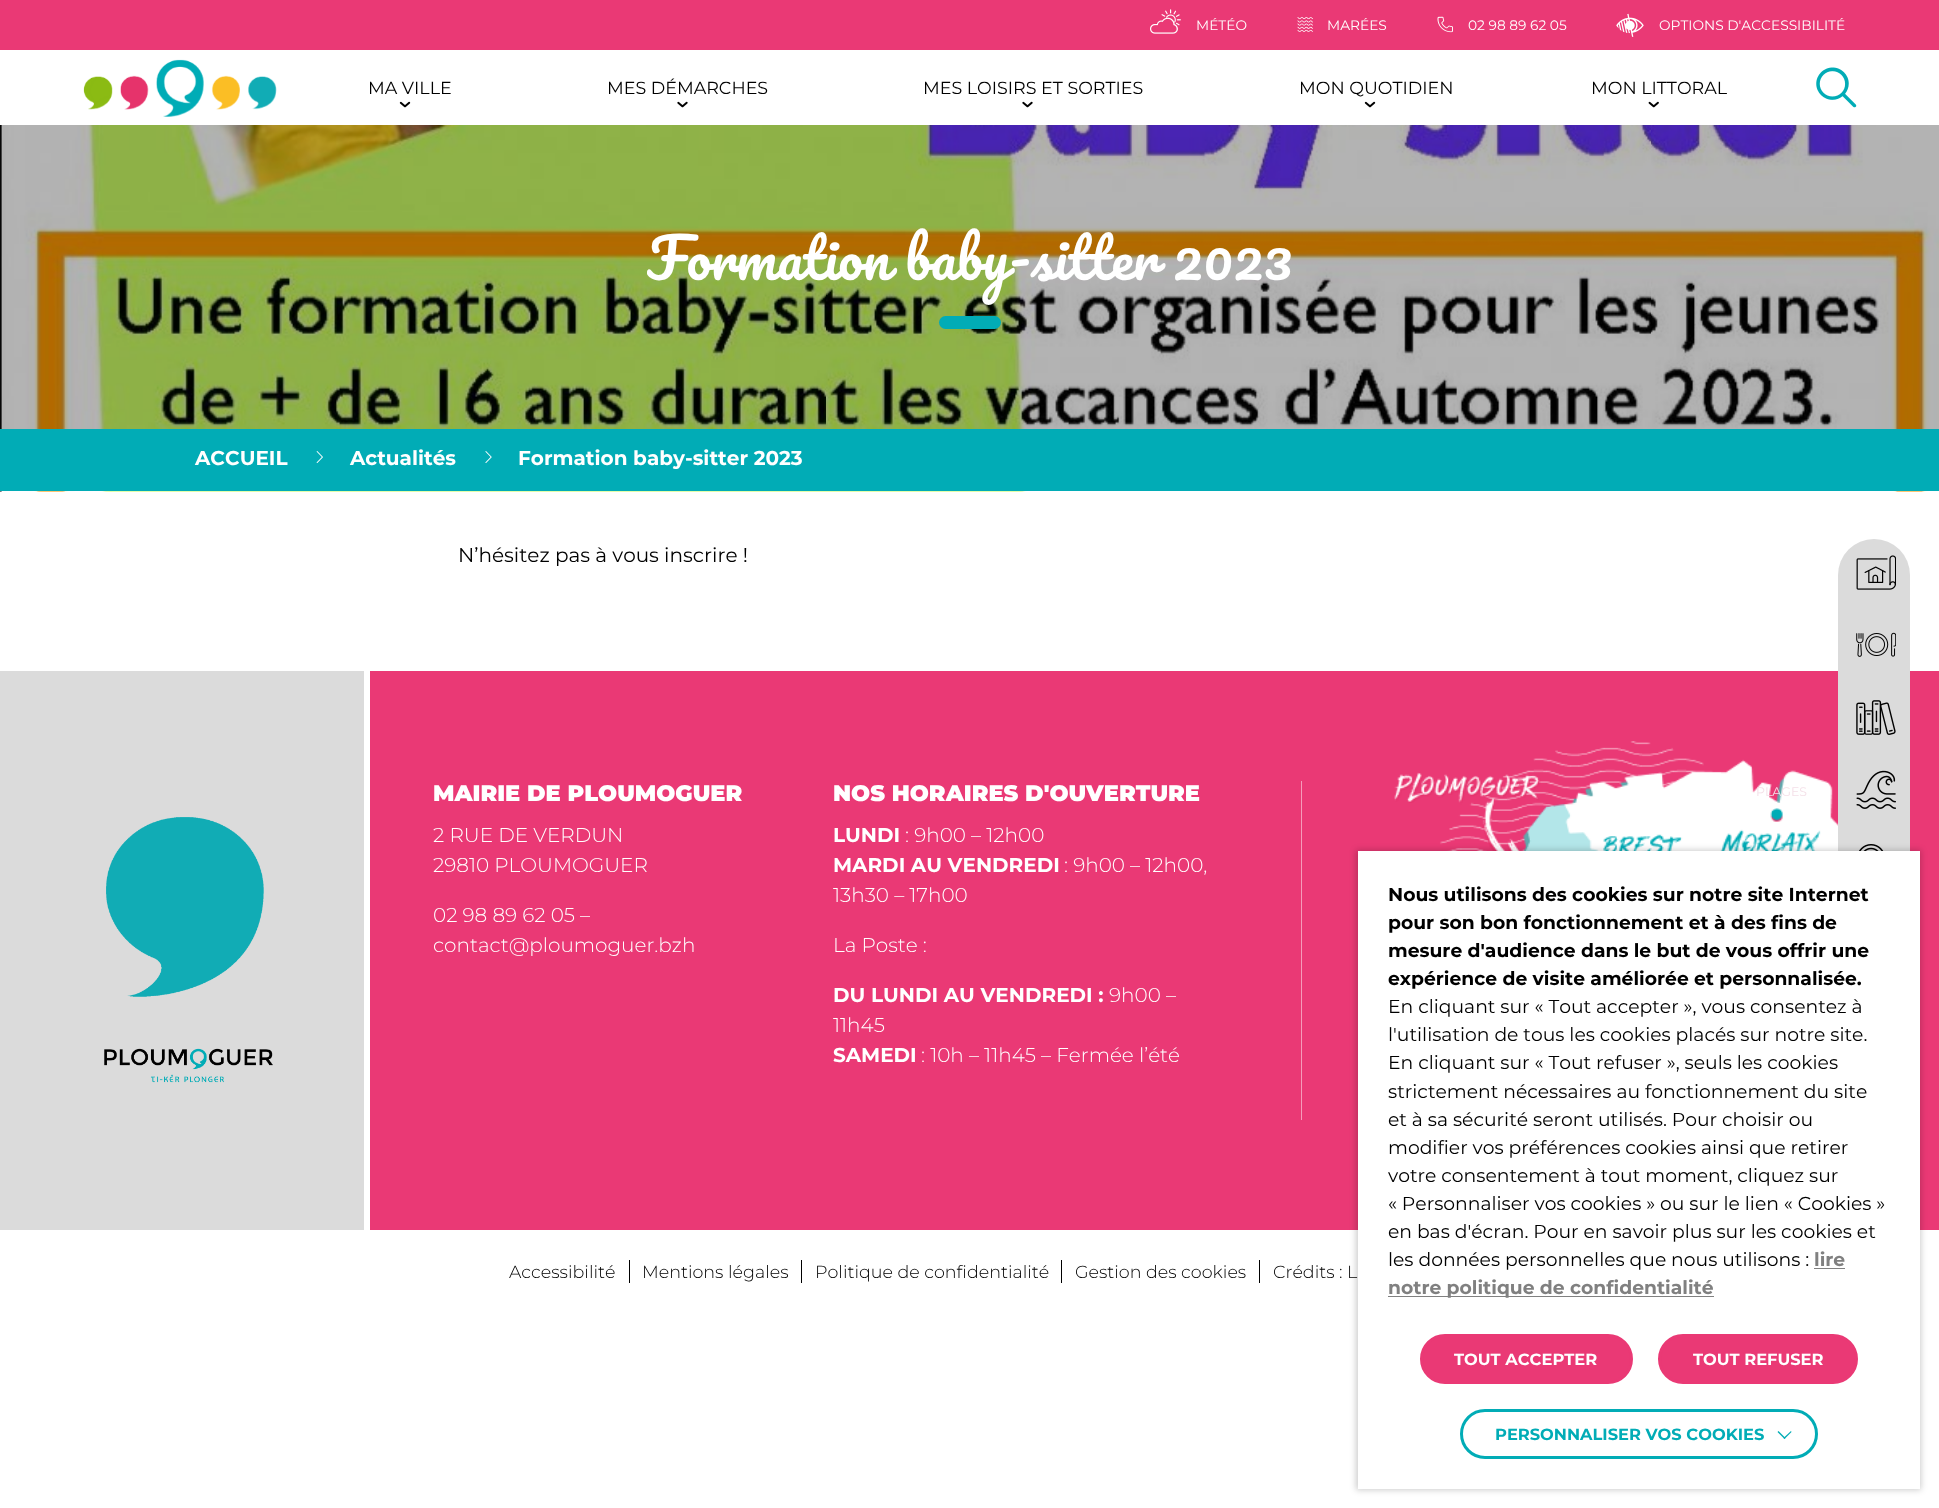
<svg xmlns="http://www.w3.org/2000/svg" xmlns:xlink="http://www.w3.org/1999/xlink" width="1939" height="1508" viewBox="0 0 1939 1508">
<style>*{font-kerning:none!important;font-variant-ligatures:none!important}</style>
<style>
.cls-1{font:100 13.75px Montserrat;fill:#ffffff}
.cls-2{font:100 17.5px Montserrat;fill:#000000}
.cls-3{font:55px Pacifico;fill:#ffffff}
.cls-4{font:100 20px 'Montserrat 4';fill:#ffffff}
.cls-5{font:100 12.5px Montserrat;fill:#f4e0e8}
.cls-6{font:100 20px Montserrat;fill:#000000}
.cls-7{font:100 22.5px 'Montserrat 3';fill:#ffffff}
.cls-8{font:100 20px 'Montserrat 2';fill:#ffffff}
.cls-9{font:100 17.5px 'Montserrat 2';fill:#000000}
.cls-10{font:100 18.75px 'Montserrat 4';fill:#000000}
.cls-11{font:100 18.75px Montserrat;fill:#000000}
.cls-12{font:100 18.75px 'Montserrat 4';fill:#808080}
.cls-13{font:100 16.25px 'Montserrat 4';fill:#ffffff}
.cls-14{font:100 16.25px 'Montserrat 4';fill:#01acb6}
</style>
<rect width="100%" height="100%" fill="#ffffff"/>
<rect fill="#ea3975" x="0" y="0" width="1939" height="50"/>
<image xlink:href="image0.png" x="1150" y="9" width="31" height="25"/>
<image xlink:href="image1.png" x="1297" y="17" width="16" height="15"/>
<image xlink:href="image2.png" x="1437" y="16" width="16" height="17"/>
<image xlink:href="image3.png" x="1616" y="13" width="28" height="24"/>
<image xlink:href="image4.png" x="83" y="59" width="194" height="58"/>
<image xlink:href="image5.png" x="399" y="101" width="12" height="7"/>
<image xlink:href="image6.png" x="677" y="101" width="11" height="7"/>
<image xlink:href="image6.png" x="1022" y="101" width="11" height="7"/>
<image xlink:href="image5.png" x="1364" y="101" width="12" height="7"/>
<image xlink:href="image7.png" x="1648" y="101" width="11" height="7"/>
<image xlink:href="image8.png" x="1816" y="67" width="41" height="41"/>
<image xlink:href="image9.png" x="0" y="125" width="1939" height="367"/>
<rect fill="#01acb6" x="939" y="316" width="62" height="13" rx="6.5"/>
<rect fill="#01acb6" x="0" y="429" width="1939" height="62"/>
<image xlink:href="image10.png" x="316" y="451" width="7" height="12"/>
<image xlink:href="image11.png" x="485" y="451" width="7" height="12"/>
<rect fill="#ea3975" x="370" y="671" width="1569" height="559"/>
<rect fill="#dbdbdb" x="1838" y="539" width="72" height="507" rx="36"/>
<image xlink:href="image12.png" x="1856" y="555" width="40" height="35"/>
<image xlink:href="image13.png" x="1856" y="632" width="40" height="25"/>
<image xlink:href="image14.png" x="1856" y="700" width="40" height="35"/>
<image xlink:href="image15.png" x="1856" y="770" width="40" height="39"/>
<image xlink:href="image16.png" x="1859" y="844" width="25" height="7"/>
<rect fill="#dbdbdb" x="0" y="671" width="364" height="559"/>
<image xlink:href="image17.png" x="104" y="817" width="169" height="266"/>
<rect fill="#f59cba" x="1301" y="781" width="1" height="339"/>
<image xlink:href="image18.png" x="1394" y="741" width="444" height="110"/>
<rect fill="#000000" x="629" y="1260" width="1" height="23"/>
<rect fill="#000000" x="801" y="1260" width="1" height="23"/>
<rect fill="#000000" x="1061" y="1260" width="1" height="23"/>
<rect fill="#000000" x="1259" y="1260" width="1" height="23"/>
<rect fill="#000000" fill-opacity="0.2" filter="blur(3px)" x="1356" y="850" width="565" height="640"/>
<rect fill="#ffffff" x="1358" y="851" width="562" height="638"/>
<rect fill="#808080" x="1814" y="1268" width="31" height="1"/>
<rect fill="#808080" x="1388" y="1296" width="326" height="1"/>
<rect fill="#ea3975" stroke="#ea3975" stroke-width="3" x="1421.5" y="1335.5" width="210" height="47" rx="23.5"/>
<rect fill="#ea3975" stroke="#ea3975" stroke-width="3" x="1659.5" y="1335.5" width="197" height="47" rx="23.5"/>
<rect fill="none" stroke="#01acb6" stroke-width="3" x="1461.5" y="1410.5" width="355" height="47" rx="23.5"/>
<path fill="#01acb6" d="M1791.5 1432L1784.5 1439L1783.5 1438L1791 1431Z"/>
<path fill="#01acb6" d="M1785.5 1438L1784.5 1439L1777.5 1432L1778.5 1431Z"/>
<text class="cls-1" x="1196" y="30">MÉTÉO</text>
<text class="cls-1" x="1327" y="30">MARÉES</text>
<text class="cls-1" x="1468" y="30">02 98 89 62 05</text>
<text class="cls-1" x="1659" y="30">OPTIONS D'ACCESSIBILITÉ</text>
<text class="cls-2" x="368" y="94">MA VILLE</text>
<text class="cls-2" x="607" y="94">MES DÉMARCHES</text>
<text class="cls-2" x="923" y="94">MES LOISIRS ET SORTIES</text>
<text class="cls-2" x="1299" y="94">MON QUOTIDIEN</text>
<text class="cls-2" x="1591" y="94">MON LITTORAL</text>
<text class="cls-3" x="647" y="280">Formation baby-sitter 2023</text>
<text class="cls-4" x="195" y="465">ACCUEIL</text>
<text class="cls-4" x="350" y="465">Actualités</text>
<text class="cls-4" x="518" y="465">Formation baby-sitter 2023</text>
<text class="cls-5" x="1756" y="796">PLAGES</text>
<text class="cls-6" x="458" y="562">N’hésitez pas à vous inscrire !</text>
<text class="cls-7" x="433" y="801">MAIRIE DE PLOUMOGUER</text>
<text class="cls-8"><tspan x="433" y="842">2 RUE DE VERDUN</tspan><tspan x="433" y="872">29810 PLOUMOGUER</tspan></text>
<text class="cls-8"><tspan x="433" y="922">02 98 89 62 05 –</tspan><tspan x="433" y="952">contact@ploumoguer.bzh</tspan></text>
<text class="cls-7" x="833" y="801">NOS HORAIRES D'OUVERTURE</text>
<text class="cls-4" x="833" y="842">LUNDI</text>
<text class="cls-8" x="905" y="842">: 9h00 – 12h00</text>
<text class="cls-4" x="833" y="872">MARDI AU VENDREDI</text>
<text class="cls-8" x="1064" y="872">: 9h00 – 12h00,</text>
<text class="cls-8" x="833" y="902">13h30 – 17h00</text>
<text class="cls-8" x="833" y="952">La Poste :</text>
<text class="cls-4" x="833" y="1002">DU LUNDI AU VENDREDI :</text>
<text class="cls-8" x="1109" y="1002">9h00 –</text>
<text class="cls-8" x="833" y="1032">11h45</text>
<text class="cls-4" x="833" y="1062">SAMEDI</text>
<text class="cls-8" x="921" y="1062">: 10h – 11h45 – Fermée l’été</text>
<text class="cls-9" x="509" y="1278">Accessibilité</text>
<text class="cls-9" x="642" y="1278">Mentions légales</text>
<text class="cls-9" x="815" y="1278">Politique de confidentialité</text>
<text class="cls-9" x="1075" y="1278">Gestion des cookies</text>
<text class="cls-9" x="1273" y="1278">Crédits : L</text>
<text class="cls-10"><tspan x="1388" y="901">Nous utilisons des cookies sur notre site Internet</tspan><tspan x="1388" y="929">pour son bon fonctionnement et à des fins de</tspan><tspan x="1388" y="957">mesure d'audience dans le but de vous offrir une</tspan><tspan x="1388" y="985">expérience de visite améliorée et personnalisée.</tspan></text>
<text class="cls-11"><tspan x="1388" y="1013">En cliquant sur « Tout accepter », vous consentez à</tspan><tspan x="1388" y="1041">l'utilisation de tous les cookies placés sur notre site.</tspan><tspan x="1388" y="1069">En cliquant sur « Tout refuser », seuls les cookies</tspan><tspan x="1388" y="1098">strictement nécessaires au fonctionnement du site</tspan><tspan x="1388" y="1126">et à sa sécurité seront utilisés. Pour choisir ou</tspan><tspan x="1388" y="1154">modifier vos préférences cookies ainsi que retirer</tspan><tspan x="1388" y="1182">votre consentement à tout moment, cliquez sur</tspan><tspan x="1388" y="1210">« Personnaliser vos cookies » ou sur le lien « Cookies »</tspan><tspan x="1388" y="1238">en bas d'écran. Pour en savoir plus sur les cookies et</tspan><tspan x="1388" y="1266">les données personnelles que nous utilisons :</tspan></text>
<text class="cls-12" x="1814" y="1266">lire</text>
<text class="cls-12" x="1388" y="1294">notre politique de confidentialité</text>
<text class="cls-13" x="1454" y="1365">TOUT ACCEPTER</text>
<text class="cls-13" x="1693" y="1365">TOUT REFUSER</text>
<text class="cls-14" x="1495" y="1440">PERSONNALISER VOS COOKIES</text>
</svg>
